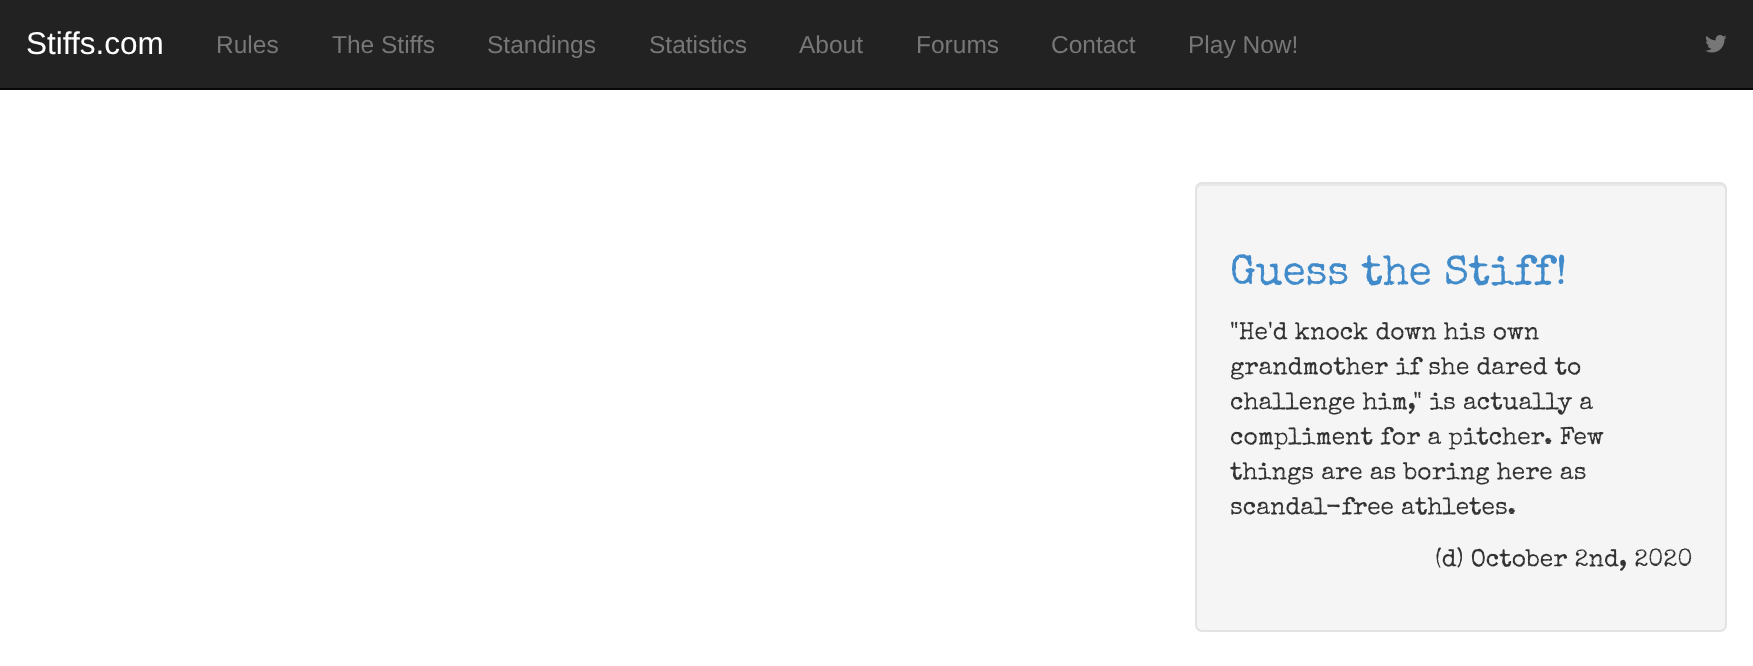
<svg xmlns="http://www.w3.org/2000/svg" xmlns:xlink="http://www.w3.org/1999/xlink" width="1753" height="666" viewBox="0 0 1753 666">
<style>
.cls-1{font:31.5px Liberation Sans;fill:#ffffff}
.cls-2{font:24.5px Liberation Sans;fill:#777777}
.cls-3{font:42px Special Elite;fill:#428bca}
.cls-4{font:24.5px Special Elite;fill:#333333}
</style>
<rect width="100%" height="100%" fill="#ffffff"/>
<rect fill="#222222" x="0" y="0" width="1753" height="88"/>
<rect fill="#080808" x="0" y="88" width="1753" height="2"/>
<image xlink:href="image0.png" x="1705" y="35" width="22" height="18"/>
<rect fill="#f5f5f5" x="1195" y="182" width="532" height="450" rx="7"/>
<path fill="#e9e9e9" d="M1202 186H1720C1723 186 1726 188 1726 191C1726 188 1725 184 1721 184H1202C1198 184 1197 188 1197 191C1197 188 1199 186 1202 186Z"/>
<rect fill="none" stroke="#e3e3e3" stroke-width="2" x="1196" y="183" width="530" height="448" rx="6"/>
<text class="cls-1" x="26" y="54">Stiffs.com</text>
<text class="cls-2" x="216" y="53">Rules</text>
<text class="cls-2" x="332" y="53">The Stiffs</text>
<text class="cls-2" x="487" y="53">Standings</text>
<text class="cls-2" x="649" y="53">Statistics</text>
<text class="cls-2" x="799" y="53">About</text>
<text class="cls-2" x="916" y="53">Forums</text>
<text class="cls-2" x="1051" y="53">Contact</text>
<text class="cls-2" x="1188" y="53">Play Now!</text>
<text class="cls-3" x="1230" y="284">Guess the Stiff!</text>
<text class="cls-4"><tspan x="1230" y="339">"He'd knock down his own</tspan><tspan x="1230" y="374">grandmother if she dared to</tspan><tspan x="1230" y="409">challenge him," is actually a</tspan><tspan x="1230" y="444">compliment for a pitcher. Few</tspan><tspan x="1230" y="479">things are as boring here as</tspan><tspan x="1230" y="514">scandal-free athletes.</tspan></text>
<text class="cls-4" x="1435" y="566">(d) October 2nd, 2020</text>
</svg>
